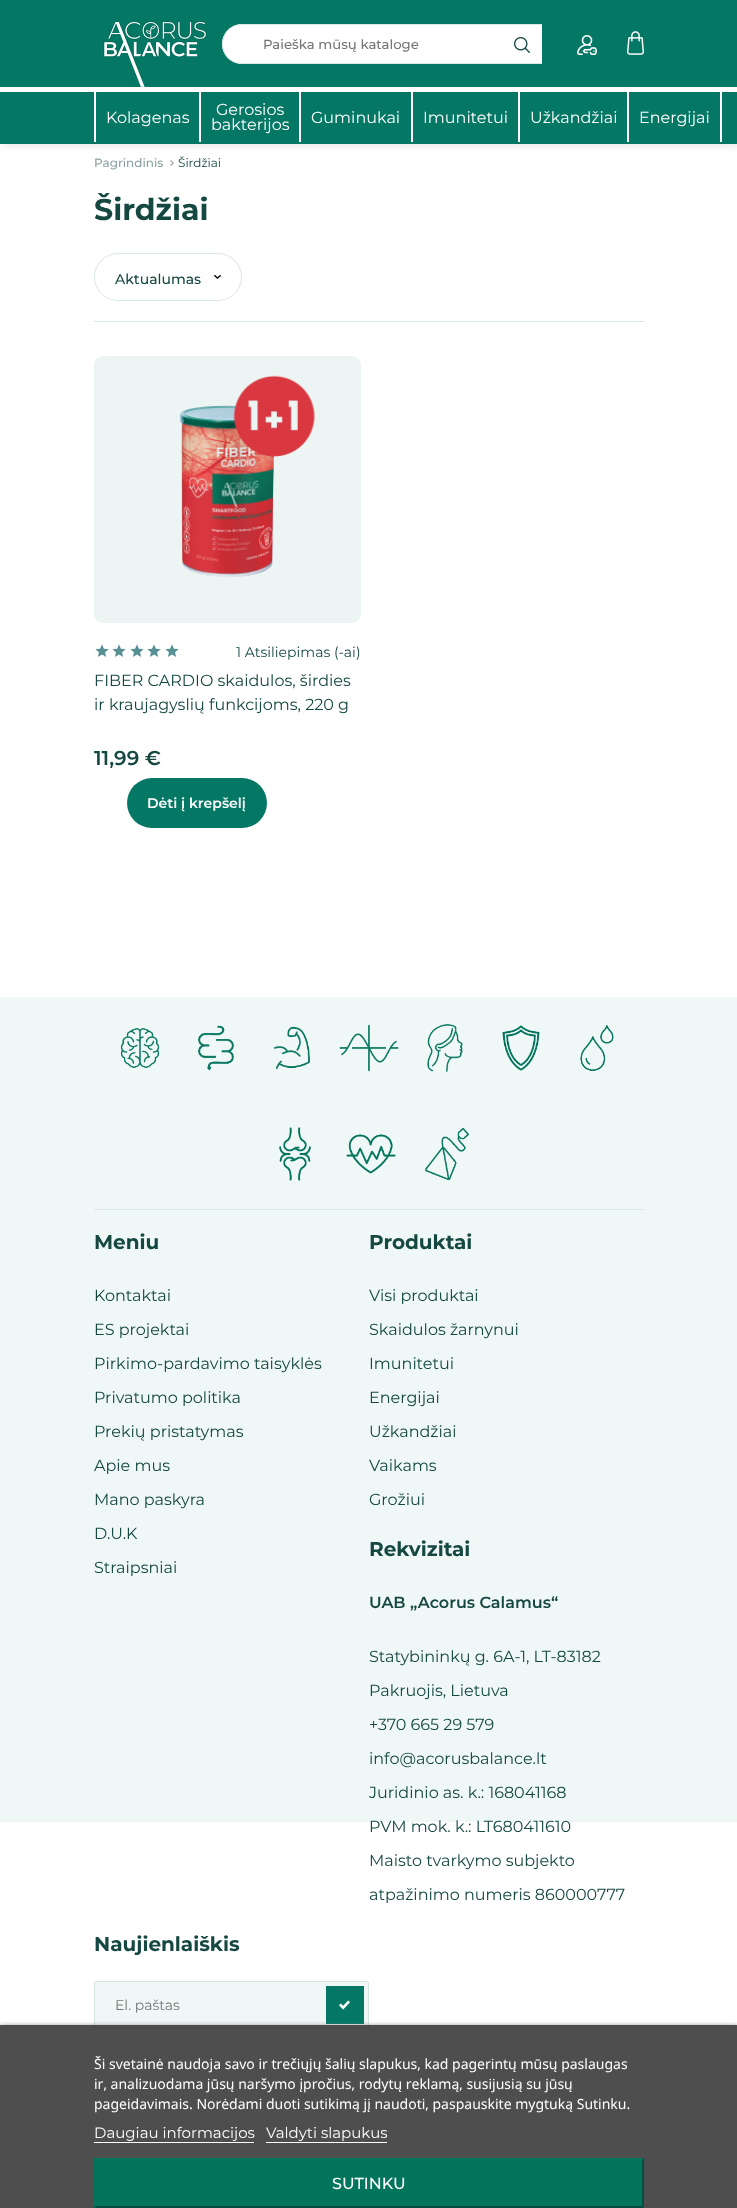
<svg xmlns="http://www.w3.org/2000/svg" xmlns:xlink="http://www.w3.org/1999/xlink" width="737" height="2208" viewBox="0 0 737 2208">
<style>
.cls-1{font:500 13.25px Montserrat;fill:#757575}
.cls-2{font:16px Montserrat;fill:#ffffff}
.cls-3{font:500 12px Montserrat;fill:#8aa29f}
.cls-4{font:12px Montserrat;fill:#164842}
.cls-5{font:bold 30px Montserrat;fill:#164842}
.cls-6{font:500 14px Montserrat;fill:#164842}
.cls-7{font:14px Montserrat;fill:#164842}
.cls-8{font:16px Montserrat;fill:#164842}
.cls-9{font:600 20px Montserrat;fill:#164842}
.cls-10{font:600 14px Montserrat;fill:#ffffff}
.cls-11{font:bold 20px Montserrat;fill:#164842}
.cls-12{font:600 16px Montserrat;fill:#164842}
.cls-13{font:14px Montserrat;fill:#757575}
.cls-14{font:14px Noto Sans;fill:#ffffff}
.cls-15{font:15px Montserrat;fill:#ffffff}
.cls-16{font:500 16px Montserrat;fill:#ffffff}
</style>
<defs>
<clipPath id="clip1"><rect x="222" y="0" width="320" height="80"/></clipPath>
<clipPath id="clip2"><rect x="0" y="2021" width="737" height="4"/></clipPath>
</defs>
<rect width="100%" height="100%" fill="#ffffff"/>
<image xlink:href="image4.png" x="170" y="160" width="4" height="6"/>
<rect fill="#323232" fill-opacity="0.12" filter="blur(4.5px)" x="2" y="2" width="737" height="144"/>
<rect fill="#047765" x="0" y="0" width="737" height="144"/>
<image xlink:href="image0.png" x="103" y="21" width="104" height="66"/>
<path fill="#ffffff" d="M242 24H542V64H242C231 64 222 55 222 44C222 33 231 24 242 24Z"/>
<image xlink:href="image2.png" x="577" y="35" width="20" height="20"/>
<image xlink:href="image3.png" x="627" y="31" width="17" height="24"/>
<g clip-path="url(#clip1)">
<rect fill="none" stroke="#d9e7e5" x="222.5" y="24.5" width="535" height="39" rx="19.5"/>
</g>
<image xlink:href="image1.png" x="514" y="37" width="16" height="16"/>
<rect fill="#ffffff" x="0" y="87" width="737" height="5"/>
<rect fill="#ffffff" x="199" y="92" width="2" height="50"/>
<rect fill="#ffffff" x="94" y="92" width="2" height="50"/>
<rect fill="#ffffff" x="299" y="92" width="2" height="50"/>
<rect fill="#ffffff" x="411" y="92" width="2" height="50"/>
<rect fill="#ffffff" x="518" y="92" width="2" height="50"/>
<rect fill="#ffffff" x="627" y="92" width="2" height="50"/>
<rect fill="#ffffff" x="720" y="92" width="2" height="50"/>
<rect fill="#d9e7e5" x="94" y="321" width="550" height="1"/>
<rect fill="none" stroke="#d9e7e5" x="94.5" y="253.5" width="147" height="47" rx="23.5"/>
<image xlink:href="image5.png" x="214" y="275" width="7" height="4"/>
<image xlink:href="image6.png" x="179" y="375" width="136" height="203"/>
<rect fill="#047563" fill-opacity="0.07" x="94" y="356" width="267" height="267" rx="9"/>
<image xlink:href="image7.png" x="95" y="644" width="14" height="13"/>
<image xlink:href="image7.png" x="112" y="644" width="14" height="13"/>
<image xlink:href="image7.png" x="130" y="644" width="14" height="13"/>
<image xlink:href="image7.png" x="147" y="644" width="14" height="13"/>
<image xlink:href="image7.png" x="165" y="644" width="14" height="13"/>
<rect fill="#047765" x="127" y="778" width="140" height="50" rx="25"/>
<rect fill="#f0f8f7" x="0" y="997" width="737" height="825"/>
<rect fill="#d9e7e5" x="94" y="1209" width="550" height="1"/>
<image xlink:href="image8.png" x="120" y="1028" width="40" height="40"/>
<image xlink:href="image9.png" x="198" y="1025" width="36" height="46"/>
<image xlink:href="image10.png" x="274" y="1026" width="36" height="44"/>
<image xlink:href="image11.png" x="339" y="1024" width="60" height="48"/>
<image xlink:href="image12.png" x="427" y="1024" width="36" height="48"/>
<image xlink:href="image13.png" x="502" y="1025" width="38" height="46"/>
<image xlink:href="image14.png" x="580" y="1025" width="34" height="47"/>
<image xlink:href="image15.png" x="279" y="1127" width="32" height="54"/>
<image xlink:href="image16.png" x="346" y="1134" width="50" height="40"/>
<image xlink:href="image17.png" x="425" y="1127" width="44" height="54"/>
<rect fill="#f0f8f7" stroke="#d5e3e1" x="94.5" y="1981.5" width="274" height="47" rx="1.5"/>
<rect fill="#047765" x="326" y="1986" width="38" height="38"/>
<image xlink:href="image18.png" x="339" y="2000" width="11" height="10"/>
<g clip-path="url(#clip2)">
<rect fill="#707070" filter="blur(2.5px)" x="0" y="2026" width="737" height="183"/>
</g>
<rect fill="#3b3b3b" fill-opacity="0.9" x="0" y="2025" width="737" height="183"/>
<rect fill="#ffffff" x="94" y="2142" width="160" height="1"/>
<rect fill="#ffffff" x="266" y="2142" width="121" height="1"/>
<rect fill="#03755d" x="94" y="2158" width="550" height="50"/>
<path fill="#024e3e" d="M644 2158V2208L642 2206V2160Z"/>
<path fill="#024e3e" d="M644 2208H94L96 2206H642Z"/>
<path fill="#03755d" d="M94 2208V2158L96 2160V2206Z"/>
<text class="cls-1" x="263" y="49">Paieška mūsų kataloge</text>
<text class="cls-2" x="106" y="123">Kolagenas</text>
<text class="cls-2" x="216" y="115">Gerosios</text>
<text class="cls-2" x="211" y="130">bakterijos</text>
<text class="cls-2" x="311" y="123">Guminukai</text>
<text class="cls-2" x="423" y="123">Imunitetui</text>
<text class="cls-2" x="530" y="123">Užkandžiai</text>
<text class="cls-2" x="639" y="123">Energijai</text>
<text class="cls-3" x="94" y="167">Pagrindinis</text>
<text class="cls-4" x="178" y="167">Širdžiai</text>
<text class="cls-5" x="94" y="220">Širdžiai</text>
<text class="cls-6" x="115" y="284">Aktualumas</text>
<text class="cls-7" x="236" y="657">1 Atsiliepimas (-ai)</text>
<text class="cls-8"><tspan x="94" y="686">FIBER CARDIO skaidulos, širdies</tspan><tspan x="94" y="710">ir kraujagyslių funkcijoms, 220 g</tspan></text>
<text class="cls-9" x="94" y="765">11,99 €</text>
<text class="cls-10" x="147" y="808">Dėti į krepšelį</text>
<text class="cls-11" x="94" y="1249">Meniu</text>
<text class="cls-8" x="94" y="1301">Kontaktai</text>
<text class="cls-8" x="94" y="1335">ES projektai</text>
<text class="cls-8" x="94" y="1369">Pirkimo-pardavimo taisyklės</text>
<text class="cls-8" x="94" y="1403">Privatumo politika</text>
<text class="cls-8" x="94" y="1437">Prekių pristatymas</text>
<text class="cls-8" x="94" y="1471">Apie mus</text>
<text class="cls-8" x="94" y="1505">Mano paskyra</text>
<text class="cls-8" x="94" y="1539">D.U.K</text>
<text class="cls-8" x="94" y="1573">Straipsniai</text>
<text class="cls-11" x="369" y="1249">Produktai</text>
<text class="cls-8" x="369" y="1301">Visi produktai</text>
<text class="cls-8" x="369" y="1335">Skaidulos žarnynui</text>
<text class="cls-8" x="369" y="1369">Imunitetui</text>
<text class="cls-8" x="369" y="1403">Energijai</text>
<text class="cls-8" x="369" y="1437">Užkandžiai</text>
<text class="cls-8" x="369" y="1471">Vaikams</text>
<text class="cls-8" x="369" y="1505">Grožiui</text>
<text class="cls-11" x="369" y="1556">Rekvizitai</text>
<text class="cls-12" x="369" y="1608">UAB „Acorus Calamus“</text>
<text class="cls-8" x="369" y="1662">Statybininkų g. 6A-1, LT-83182</text>
<text class="cls-8" x="369" y="1696">Pakruojis, Lietuva</text>
<text class="cls-8" x="369" y="1730">+370 665 29 579</text>
<text class="cls-8" x="369" y="1764">info@acorusbalance.lt</text>
<text class="cls-8" x="369" y="1798">Juridinio as. k.: 168041168</text>
<text class="cls-8" x="369" y="1832">PVM mok. k.: LT680411610</text>
<text class="cls-8" x="369" y="1866">Maisto tvarkymo subjekto</text>
<text class="cls-8" x="369" y="1900">atpažinimo numeris 860000777</text>
<text class="cls-11" x="94" y="1951">Naujienlaiškis</text>
<text class="cls-13" x="115" y="2010">El. paštas</text>
<text class="cls-14"><tspan x="94" y="2069">Ši svetainė naudoja savo ir trečiųjų šalių slapukus, kad pagerintų mūsų paslaugas</tspan><tspan x="94" y="2089">ir, analizuodama jūsų naršymo įpročius, rodytų reklamą, susijusią su jūsų</tspan><tspan x="94" y="2109">pageidavimais. Norėdami duoti sutikimą jį naudoti, paspauskite mygtuką Sutinku.</tspan></text>
<text class="cls-15" x="94" y="2138">Daugiau informacijos</text>
<text class="cls-15" x="266" y="2138">Valdyti slapukus</text>
<text class="cls-16" x="332" y="2189">SUTINKU</text>
</svg>
